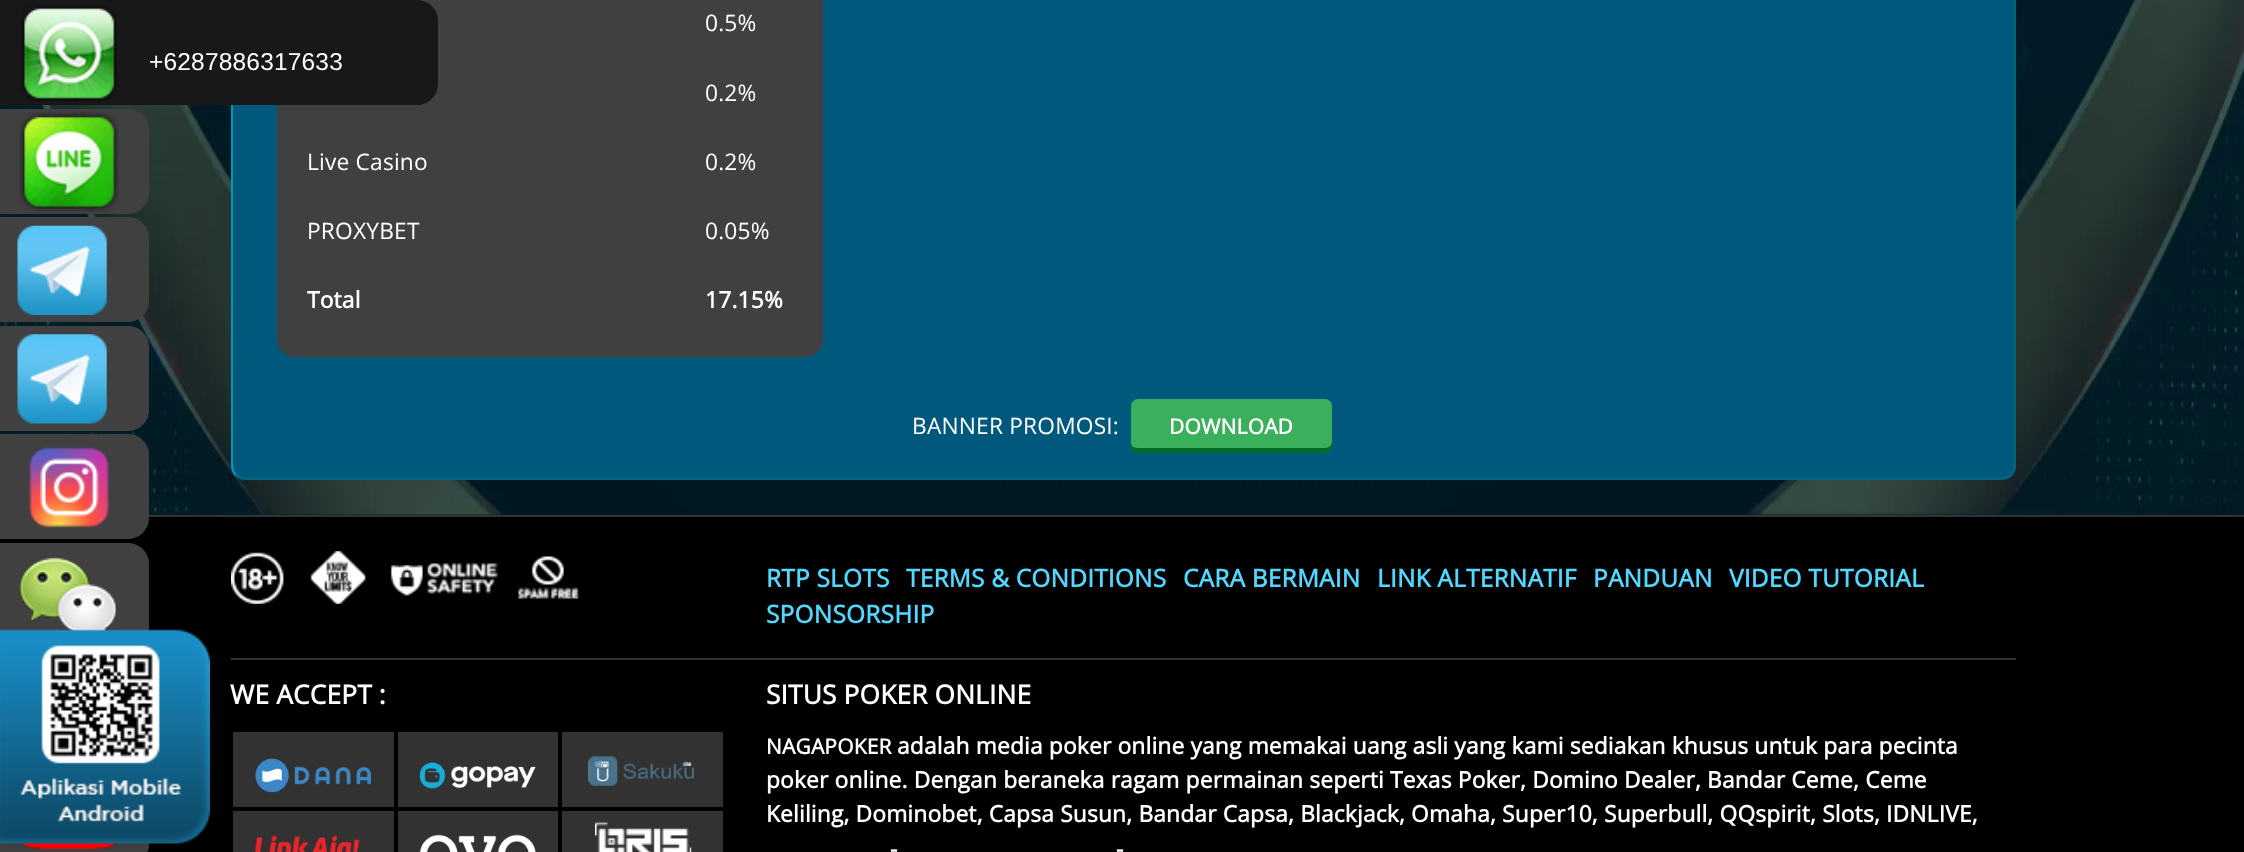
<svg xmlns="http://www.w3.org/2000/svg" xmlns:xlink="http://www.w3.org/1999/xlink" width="2244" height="852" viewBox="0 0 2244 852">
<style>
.cls-1{font:24.5px Liberation Sans;letter-spacing:0.18px;fill:#ffffff}
.cls-2{font:22.75px Open Sans;letter-spacing:0.18px;fill:#ffffff}
.cls-3{font:bold 22.75px Open Sans;letter-spacing:0.18px;fill:#ffffff}
.cls-4{font:bold 21px Open Sans;letter-spacing:0.18px;fill:#ffffff}
.cls-5{font:bold 24.5px Open Sans;letter-spacing:0.18px;fill:#52d8ff}
.cls-6{font:bold 26.25px Open Sans;letter-spacing:0.18px;fill:#ffffff}
</style>
<rect width="100%" height="100%" fill="#001f2c"/>
<image xlink:href="image0.png" x="0" y="0" width="2244" height="515"/>
<rect fill="#00587c" x="231" y="-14" width="1785" height="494" rx="14"/>
<path fill="none" stroke="#006b7d" stroke-width="1.8" d="M2011.5-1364C2013.5-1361.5 2015-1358 2015-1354.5V465.5C2015 469 2013.5 472.5 2011.5 475C2009 477 2005.5 478.5 2002 478.5H245C241.5 478.5 238 477 235.5 475"/>
<path fill="none" stroke="#00a0bc" stroke-width="1.8" d="M235.5 475C233.5 472.5 232 469 232 465.5V-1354.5C232-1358 233.5-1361.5 235.5-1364C238-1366 241.5-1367.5 245-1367.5H2002C2005.5-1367.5 2009-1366 2011.5-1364"/>
<path fill="#404040" d="M277-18H823V339C823 349 815 357 805 357H295C285 357 277 349 277 339Z"/>
<path fill="#181818" d="M0 0H417C428.5 0 438 9.5 438 21V84C438 95.5 428.5 105 417 105H0Z"/>
<image xlink:href="image1.png" x="21" y="5" width="96" height="97"/>
<path fill="#404040" d="M0 109H128C139.5 109 149 118.5 149 130V193C149 204.5 139.5 214 128 214H0Z"/>
<image xlink:href="image2.png" x="19" y="112" width="100" height="100"/>
<path fill="#404040" d="M0 217H128C139.5 217 149 226.5 149 238V301C149 312.5 139.5 322 128 322H0Z"/>
<image xlink:href="image3.png" x="17" y="225" width="90" height="90"/>
<path fill="#404040" d="M0 326H128C139.5 326 149 335.5 149 347V410C149 421.5 139.5 431 128 431H0Z"/>
<image xlink:href="image4.png" x="17" y="334" width="90" height="90"/>
<rect fill="#000000" x="0" y="517" width="2244" height="335"/>
<path fill="#404040" d="M0 434H128C139.5 434 149 443.5 149 455V518C149 529.5 139.5 539 128 539H0Z"/>
<image xlink:href="image5.png" x="29" y="447" width="80" height="81"/>
<path fill="#404040" d="M0 543H128C139.5 543 149 552.5 149 564V627C149 638.5 139.5 648 128 648H0Z"/>
<image xlink:href="image6.png" x="19" y="557" width="98" height="74"/>
<path fill="#404040" d="M0 760H128C139.5 760 149 769.5 149 781V844C149 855.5 139.5 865 128 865H0Z"/>
<image xlink:href="image7.png" x="21" y="843" width="97" height="6"/>
<rect fill="#3aaf5c" x="1131" y="399" width="201" height="54" rx="7"/>
<path fill="#006c25" d="M1131 444V446C1131 450 1134 453 1138 453H1325C1329 453 1332 450 1332 446V441C1332 445 1329 448 1325 448H1138C1135 448 1132 447 1131 444Z"/>
<image xlink:href="image8.png" x="0" y="629" width="210" height="215"/>
<rect fill="#333333" x="149" y="515" width="2095" height="2"/>
<rect fill="#323232" x="231" y="658" width="1785" height="2"/>
<image xlink:href="image9.png" x="231" y="551" width="349" height="53"/>
<rect fill="#323232" x="233" y="732" width="161" height="75"/>
<image xlink:href="image10.png" x="255" y="758" width="116" height="35"/>
<rect fill="#323232" x="398" y="732" width="160" height="75"/>
<image xlink:href="image11.png" x="420" y="762" width="116" height="27"/>
<rect fill="#323232" x="562" y="732" width="161" height="75"/>
<image xlink:href="image12.png" x="588" y="756" width="106" height="30"/>
<rect fill="#323232" x="233" y="811" width="161" height="41"/>
<image xlink:href="image13.png" x="255" y="835" width="105" height="17"/>
<rect fill="#323232" x="398" y="811" width="160" height="41"/>
<image xlink:href="image14.png" x="420" y="834" width="116" height="18"/>
<rect fill="#323232" x="562" y="811" width="161" height="41"/>
<image xlink:href="image15.png" x="595" y="822" width="97" height="30"/>
<text class="cls-1" x="149" y="70">+6287886317633</text>
<text class="cls-2" x="705" y="31">0.5%</text>
<text class="cls-2" x="705" y="101">0.2%</text>
<text class="cls-2" x="307" y="170">Live Casino</text>
<text class="cls-2" x="705" y="170">0.2%</text>
<text class="cls-2" x="307" y="239">PROXYBET</text>
<text class="cls-2" x="705" y="239">0.05%</text>
<text class="cls-3" x="307" y="308">Total</text>
<text class="cls-3" x="705" y="308">17.15%</text>
<text class="cls-2" x="912" y="434">BANNER PROMOSI:</text>
<text class="cls-4" x="1169" y="434">DOWNLOAD</text>
<text class="cls-5" x="766" y="587">RTP SLOTS</text>
<text class="cls-5" x="906" y="587">TERMS &amp; CONDITIONS</text>
<text class="cls-5" x="1183" y="587">CARA BERMAIN</text>
<text class="cls-5" x="1377" y="587">LINK ALTERNATIF</text>
<text class="cls-5" x="1593" y="587">PANDUAN</text>
<text class="cls-5" x="1729" y="587">VIDEO TUTORIAL</text>
<text class="cls-5" x="766" y="623">SPONSORSHIP</text>
<text class="cls-6" x="230" y="704">WE ACCEPT :</text>
<text class="cls-6" x="766" y="704">SITUS POKER ONLINE</text>
<text class="cls-4" x="766" y="754">NAGAPOKER</text>
<text class="cls-3" x="897" y="754">adalah media poker online yang memakai uang asli yang kami sediakan khusus untuk para pecinta</text>
<text class="cls-3"><tspan x="766" y="788">poker online. Dengan beraneka ragam permainan seperti Texas Poker, Domino Dealer, Bandar Ceme, Ceme</tspan><tspan x="766" y="822">Keliling, Dominobet, Capsa Susun, Bandar Capsa, Blackjack, Omaha, Super10, Superbull, QQspirit, Slots, IDNLIVE,</tspan></text>
<text class="cls-3" x="890" y="857">-</text>
<text class="cls-3" x="1116" y="857">-</text>
</svg>
